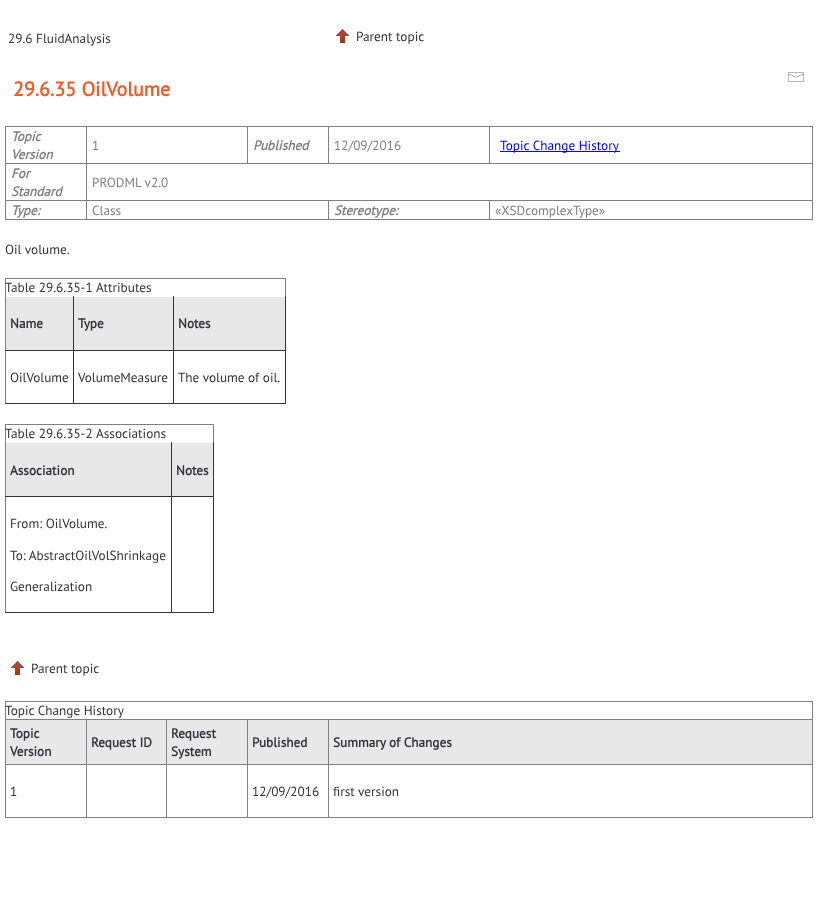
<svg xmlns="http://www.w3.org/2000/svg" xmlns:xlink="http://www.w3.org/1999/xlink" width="821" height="898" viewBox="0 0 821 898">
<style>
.cls-1{font:13.25px PT Sans;fill:#33333c}
.cls-2{font:bold 20px PT Sans;fill:#f15a29}
.cls-3{font:italic bold 13.25px PT Sans;fill:#808080}
.cls-4{font:13.25px PT Sans;fill:#808080}
.cls-5{font:13.25px PT Sans;fill:#0000ee}
.cls-6{font:bold 13.25px PT Sans;fill:#33333c}
</style>
<rect width="100%" height="100%" fill="#ffffff"/>
<image xlink:href="image0.png" x="336" y="29" width="13" height="14"/>
<image xlink:href="image1.png" x="788" y="72" width="16" height="10"/>
<rect fill="#808080" x="5" y="126" width="808" height="1"/>
<rect fill="#808080" x="812" y="126" width="1" height="94"/>
<rect fill="#808080" x="5" y="219" width="808" height="1"/>
<rect fill="#808080" x="5" y="126" width="1" height="94"/>
<rect fill="#808080" x="86" y="163" width="727" height="1"/>
<rect fill="#808080" x="489" y="200" width="324" height="1"/>
<rect fill="#808080" x="489" y="200" width="1" height="20"/>
<rect fill="#808080" x="328" y="200" width="162" height="1"/>
<rect fill="#808080" x="328" y="200" width="1" height="20"/>
<rect fill="#808080" x="86" y="200" width="243" height="1"/>
<rect fill="#808080" x="86" y="200" width="1" height="20"/>
<rect fill="#808080" x="5" y="200" width="82" height="1"/>
<rect fill="#808080" x="86" y="163" width="1" height="38"/>
<rect fill="#808080" x="5" y="163" width="82" height="1"/>
<rect fill="#808080" x="86" y="126" width="1" height="38"/>
<rect fill="#808080" x="247" y="126" width="1" height="38"/>
<rect fill="#808080" x="328" y="126" width="1" height="38"/>
<rect fill="#808080" x="489" y="126" width="1" height="38"/>
<rect fill="#0000ee" x="500" y="151" width="120" height="1"/>
<rect fill="#808080" x="5" y="278" width="281" height="1"/>
<rect fill="#808080" x="285" y="278" width="1" height="18"/>
<rect fill="#808080" x="5" y="278" width="1" height="126"/>
<rect fill="#e8e8e8" x="6" y="297" width="279" height="53"/>
<rect fill="#33333c" x="285" y="296" width="1" height="108"/>
<rect fill="#33333c" x="173" y="403" width="113" height="1"/>
<rect fill="#33333c" x="173" y="350" width="1" height="54"/>
<rect fill="#33333c" x="173" y="350" width="113" height="1"/>
<rect fill="#33333c" x="173" y="296" width="1" height="55"/>
<rect fill="#33333c" x="73" y="403" width="101" height="1"/>
<rect fill="#33333c" x="73" y="350" width="1" height="54"/>
<rect fill="#33333c" x="73" y="350" width="101" height="1"/>
<rect fill="#33333c" x="73" y="296" width="1" height="55"/>
<rect fill="#33333c" x="5" y="350" width="69" height="1"/>
<rect fill="#33333c" x="5" y="403" width="69" height="1"/>
<rect fill="#808080" x="5" y="424" width="209" height="1"/>
<rect fill="#808080" x="213" y="424" width="1" height="18"/>
<rect fill="#808080" x="5" y="424" width="1" height="189"/>
<rect fill="#e8e8e8" x="6" y="443" width="207" height="53"/>
<rect fill="#33333c" x="213" y="442" width="1" height="171"/>
<rect fill="#33333c" x="171" y="612" width="43" height="1"/>
<rect fill="#33333c" x="171" y="496" width="1" height="117"/>
<rect fill="#33333c" x="171" y="496" width="43" height="1"/>
<rect fill="#33333c" x="171" y="442" width="1" height="55"/>
<rect fill="#33333c" x="5" y="496" width="167" height="1"/>
<rect fill="#33333c" x="5" y="612" width="167" height="1"/>
<image xlink:href="image0.png" x="11" y="661" width="13" height="14"/>
<rect fill="#808080" x="5" y="701" width="808" height="1"/>
<rect fill="#808080" x="812" y="701" width="1" height="117"/>
<rect fill="#808080" x="5" y="817" width="808" height="1"/>
<rect fill="#808080" x="5" y="701" width="1" height="117"/>
<rect fill="#e8e8e8" x="6" y="720" width="806" height="44"/>
<rect fill="#808080" x="328" y="719" width="485" height="1"/>
<rect fill="#808080" x="328" y="764" width="485" height="1"/>
<rect fill="#808080" x="328" y="764" width="1" height="54"/>
<rect fill="#808080" x="247" y="764" width="82" height="1"/>
<rect fill="#808080" x="328" y="719" width="1" height="46"/>
<rect fill="#808080" x="247" y="719" width="82" height="1"/>
<rect fill="#808080" x="247" y="764" width="1" height="54"/>
<rect fill="#808080" x="166" y="764" width="82" height="1"/>
<rect fill="#808080" x="247" y="719" width="1" height="46"/>
<rect fill="#808080" x="166" y="719" width="82" height="1"/>
<rect fill="#808080" x="166" y="764" width="1" height="54"/>
<rect fill="#808080" x="86" y="764" width="81" height="1"/>
<rect fill="#808080" x="166" y="719" width="1" height="46"/>
<rect fill="#808080" x="86" y="719" width="81" height="1"/>
<rect fill="#808080" x="86" y="764" width="1" height="54"/>
<rect fill="#808080" x="5" y="764" width="82" height="1"/>
<rect fill="#808080" x="86" y="719" width="1" height="46"/>
<rect fill="#808080" x="5" y="719" width="82" height="1"/>
<text class="cls-1" x="8" y="43">29.6 FluidAnalysis</text>
<text class="cls-1" x="356" y="41">Parent topic</text>
<text class="cls-2" x="13" y="96">29.6.35 OilVolume</text>
<text class="cls-3"><tspan x="11" y="141">Topic</tspan><tspan x="11" y="159">Version</tspan></text>
<text class="cls-4" x="92" y="150">1</text>
<text class="cls-3" x="253" y="150">Published</text>
<text class="cls-4" x="334" y="150">12/09/2016</text>
<text class="cls-5" x="500" y="150">Topic Change History</text>
<text class="cls-3"><tspan x="11" y="178">For</tspan><tspan x="11" y="196">Standard</tspan></text>
<text class="cls-4" x="92" y="187">PRODML v2.0</text>
<text class="cls-3" x="11" y="215">Type:</text>
<text class="cls-4" x="92" y="215">Class</text>
<text class="cls-3" x="334" y="215">Stereotype:</text>
<text class="cls-4" x="495" y="215">«XSDcomplexType»</text>
<text class="cls-1" x="5" y="254">Oil volume.</text>
<text class="cls-1" x="5" y="292">Table 29.6.35-1</text>
<text class="cls-1" x="96" y="292">Attributes</text>
<text class="cls-6" x="10" y="328">Name</text>
<text class="cls-6" x="78" y="328">Type</text>
<text class="cls-6" x="178" y="328">Notes</text>
<text class="cls-1" x="10" y="382">OilVolume</text>
<text class="cls-1" x="78" y="382">VolumeMeasure</text>
<text class="cls-1" x="178" y="382">The volume of oil.</text>
<text class="cls-1" x="5" y="438">Table 29.6.35-2</text>
<text class="cls-1" x="96" y="438">Associations</text>
<text class="cls-6" x="10" y="475">Association</text>
<text class="cls-6" x="176" y="475">Notes</text>
<text class="cls-1" x="10" y="528">From: OilVolume.</text>
<text class="cls-1" x="10" y="560">To: AbstractOilVolShrinkage</text>
<text class="cls-1" x="10" y="591">Generalization</text>
<text class="cls-1" x="31" y="673">Parent topic</text>
<text class="cls-1" x="5" y="715">Topic Change History</text>
<text class="cls-6"><tspan x="10" y="738">Topic</tspan><tspan x="10" y="756">Version</tspan></text>
<text class="cls-6" x="91" y="747">Request ID</text>
<text class="cls-6"><tspan x="171" y="738">Request</tspan><tspan x="171" y="756">System</tspan></text>
<text class="cls-6" x="252" y="747">Published</text>
<text class="cls-6" x="333" y="747">Summary of Changes</text>
<text class="cls-1" x="10" y="796">1</text>
<text class="cls-1" x="252" y="796">12/09/2016</text>
<text class="cls-1" x="333" y="796">first version</text>
</svg>
